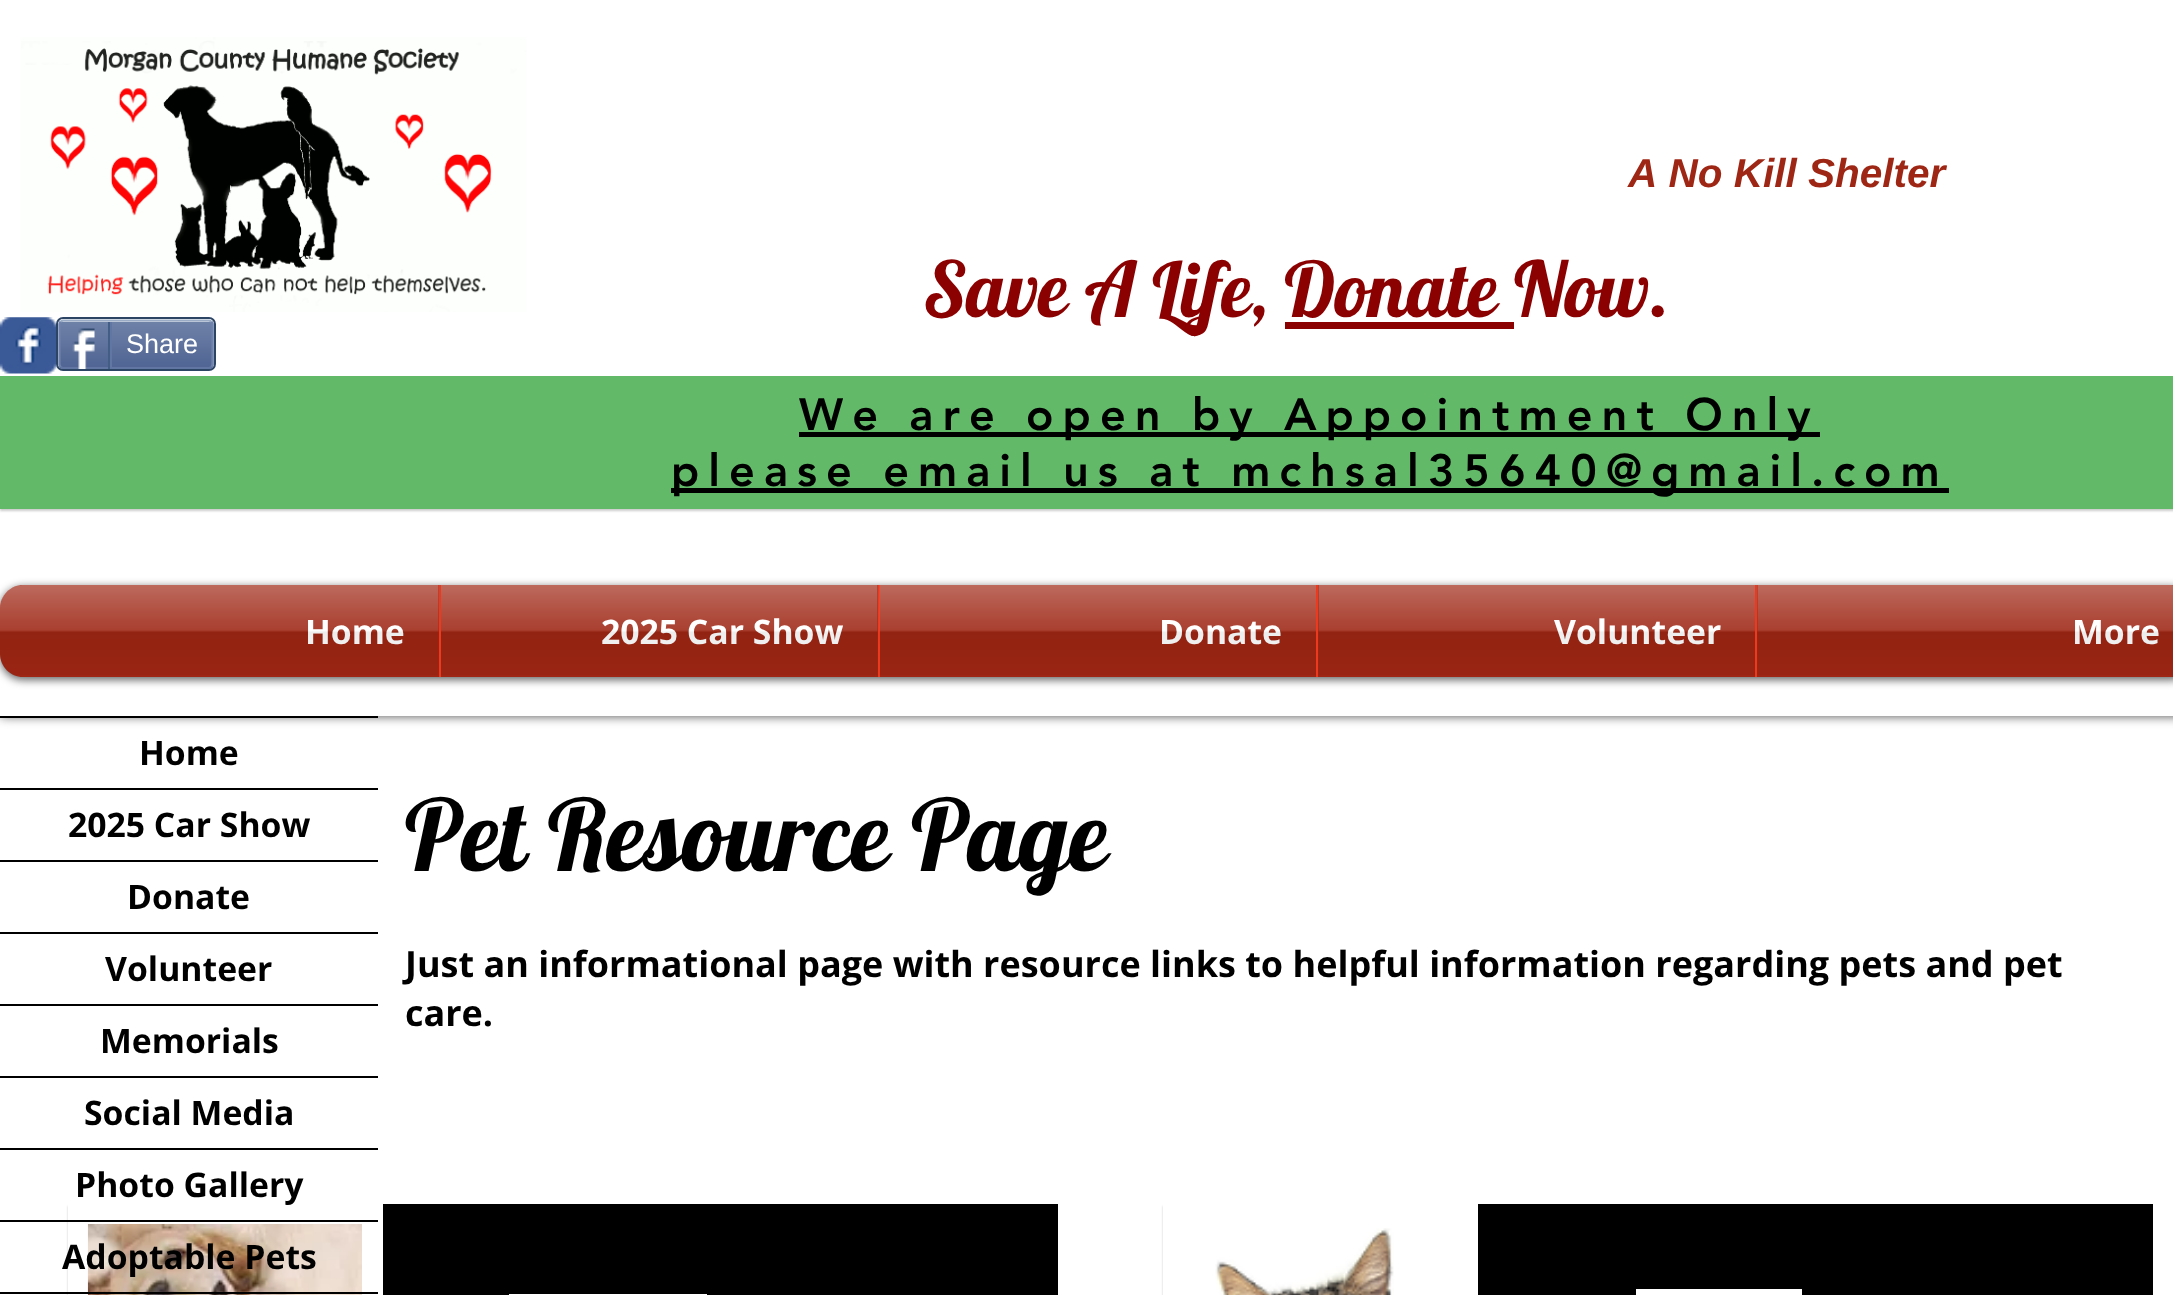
<svg xmlns="http://www.w3.org/2000/svg" xmlns:xlink="http://www.w3.org/1999/xlink" width="2173" height="1295" viewBox="0 0 2173 1295">
<style>*{font-kerning:none!important;font-variant-ligatures:none!important}</style>
<style>
.cls-1{font:italic bold 40.5px Liberation Sans;fill:#9e2614}
.cls-2{font:76.5px Lobster;fill:#8b0000}
.cls-3{font:27px Liberation Sans;fill:#ffffff}
.cls-4{font:900 45px 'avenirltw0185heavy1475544';letter-spacing:9px;fill:#000000}
.cls-5{font:bold 33.75px Open Sans;fill:#ffffff}
.cls-6{font:bold 33.75px Open Sans;fill:#000000}
.cls-7{font:99px Lobster;fill:#000000}
.cls-8{font:bold 36px Open Sans;fill:#000000}
</style>
<defs>
<clipPath id="clip1"><path d="M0 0H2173V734H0ZM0 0H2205V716H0Z" clip-rule="evenodd"/></clipPath>
</defs>
<rect width="100%" height="100%" fill="#ffffff"/>
<g clip-path="url(#clip1)">
<rect fill="#000000" fill-opacity="0.7" filter="blur(5.5px)" x="0" y="0" width="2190" height="716"/>
</g>
<rect fill="#ffffff" fill-opacity="0.6" x="0" y="715" width="2173" height="1"/>
<image xlink:href="image0.png" x="21" y="37" width="506" height="275"/>
<rect fill="#8b0000" x="1285" y="322" width="229" height="7"/>
<image xlink:href="image1.png" x="0" y="317" width="57" height="57"/>
<rect fill="none" stroke="#2d4565" stroke-width="2" x="57" y="318" width="158" height="52" rx="6"/>
<image xlink:href="image2.png" x="58" y="321" width="156" height="48"/>
<path fill="none" stroke="#9aabc6" stroke-width="2.2" d="M60.5 321.5L63 320.5H209L211.5 321.5"/>
<path fill="none" stroke="#6f83ad" stroke-width="2.2" d="M211.5 321.5L212.5 324V364.5L211.5 367"/>
<path fill="none" stroke="#6176a3" stroke-width="2.2" d="M211.5 367L209 368H63L60.5 367"/>
<path fill="none" stroke="#6f83ad" stroke-width="2.2" d="M60.5 367L59.5 364.5V324L60.5 321.5"/>
<image xlink:href="image3.png" x="72" y="328" width="23" height="41"/>
<rect fill="#425e85" x="108" y="322" width="2" height="47"/>
<rect fill="#6176a3" x="110" y="322" width="2" height="45"/>
<rect fill="#000000" fill-opacity="0.2" filter="blur(1px)" x="0" y="378" width="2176" height="133"/>
<rect fill="#62ba69" x="0" y="376" width="2173" height="133"/>
<rect fill="#000000" x="799" y="432" width="1021" height="5"/>
<rect fill="#000000" x="671" y="488" width="1278" height="5"/>
<rect fill="#000000" fill-opacity="0.6" filter="blur(4.5px)" x="0" y="587" width="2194" height="93" rx="23"/>
<image xlink:href="image4.png" x="0" y="585" width="2173" height="92"/>
<path fill="#9e2614" d="M23 585H439V677H23C10.5 677 0 666.5 0 654V608C0 595.5 10.5 585 23 585Z"/>
<rect fill="#9e2614" x="441" y="585" width="437" height="92"/>
<rect fill="#ed3a1e" x="439" y="585" width="2" height="92"/>
<rect fill="#9e2614" x="880" y="585" width="436" height="92"/>
<rect fill="#ed3a1e" x="878" y="585" width="2" height="92"/>
<rect fill="#9e2614" x="1318" y="585" width="437" height="92"/>
<rect fill="#ed3a1e" x="1316" y="585" width="2" height="92"/>
<path fill="#9e2614" d="M1755 585H2171C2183.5 585 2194 595.5 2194 608V654C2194 666.5 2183.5 677 2171 677H1755Z"/>
<rect fill="#ed3a1e" x="1755" y="585" width="2" height="92"/>
<rect fill="#000000" x="0" y="716" width="378" height="2"/>
<rect fill="#000000" x="0" y="788" width="378" height="2"/>
<rect fill="#000000" x="0" y="860" width="378" height="2"/>
<rect fill="#000000" x="0" y="932" width="378" height="2"/>
<rect fill="#000000" x="0" y="1004" width="378" height="2"/>
<rect fill="#000000" x="0" y="1076" width="378" height="2"/>
<rect fill="#000000" x="0" y="1148" width="378" height="2"/>
<rect fill="#000000" x="383" y="1204" width="675" height="91"/>
<rect fill="#000000" fill-opacity="0.2" filter="blur(1px)" x="68" y="1206" width="315" height="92"/>
<rect fill="#ffffff" x="68" y="1204" width="315" height="91"/>
<rect fill="#000000" x="0" y="1220" width="378" height="2"/>
<image xlink:href="image10.png" x="87" y="1224" width="275" height="71"/>
<rect fill="#000000" x="0" y="1292" width="378" height="2"/>
<rect fill="#ffffff" x="509" y="1294" width="198" height="1"/>
<rect fill="#000000" x="1478" y="1204" width="675" height="91"/>
<rect fill="#000000" fill-opacity="0.2" filter="blur(1px)" x="1163" y="1206" width="315" height="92"/>
<rect fill="#ffffff" x="1163" y="1204" width="315" height="91"/>
<image xlink:href="image11.png" x="1215" y="1228" width="179" height="67"/>
<rect fill="#ffffff" x="1636" y="1289" width="166" height="6"/>
<text class="cls-1" x="1628" y="187">A No Kill Shelter</text>
<text class="cls-2" x="923" y="317">Save A Life, Donate Now.</text>
<text class="cls-3" x="126" y="353">Share</text>
<text class="cls-4" x="799" y="430">We are open by Appointment Only</text>
<text class="cls-4" x="671" y="486">please email us at mchsal35640@gmail.com</text>
<text class="cls-5" x="305" y="644">Home</text>
<image xlink:href="image5.png" x="0" y="585" width="439" height="90"/>
<text class="cls-5" x="601" y="644">2025 Car Show</text>
<image xlink:href="image6.png" x="441" y="585" width="437" height="90"/>
<text class="cls-5" x="1159" y="644">Donate</text>
<image xlink:href="image7.png" x="879" y="585" width="437" height="90"/>
<text class="cls-5" x="1554" y="644">Volunteer</text>
<image xlink:href="image8.png" x="1318" y="585" width="437" height="90"/>
<text class="cls-5" x="2072" y="644">More</text>
<image xlink:href="image9.png" x="1757" y="585" width="416" height="90"/>
<text class="cls-6" x="139" y="765">Home</text>
<text class="cls-6" x="68" y="837">2025 Car Show</text>
<text class="cls-6" x="127" y="909">Donate</text>
<text class="cls-6" x="105" y="981">Volunteer</text>
<text class="cls-6" x="100" y="1053">Memorials</text>
<text class="cls-6" x="84" y="1125">Social Media</text>
<text class="cls-6" x="75" y="1197">Photo Gallery</text>
<text class="cls-6" x="62" y="1269">Adoptable Pets</text>
<text class="cls-7" x="405" y="871">Pet Resource Page</text>
<text class="cls-8"><tspan x="405" y="977">Just an informational page with resource links to helpful information regarding pets and pet</tspan><tspan x="405" y="1026">care.</tspan></text>
</svg>
